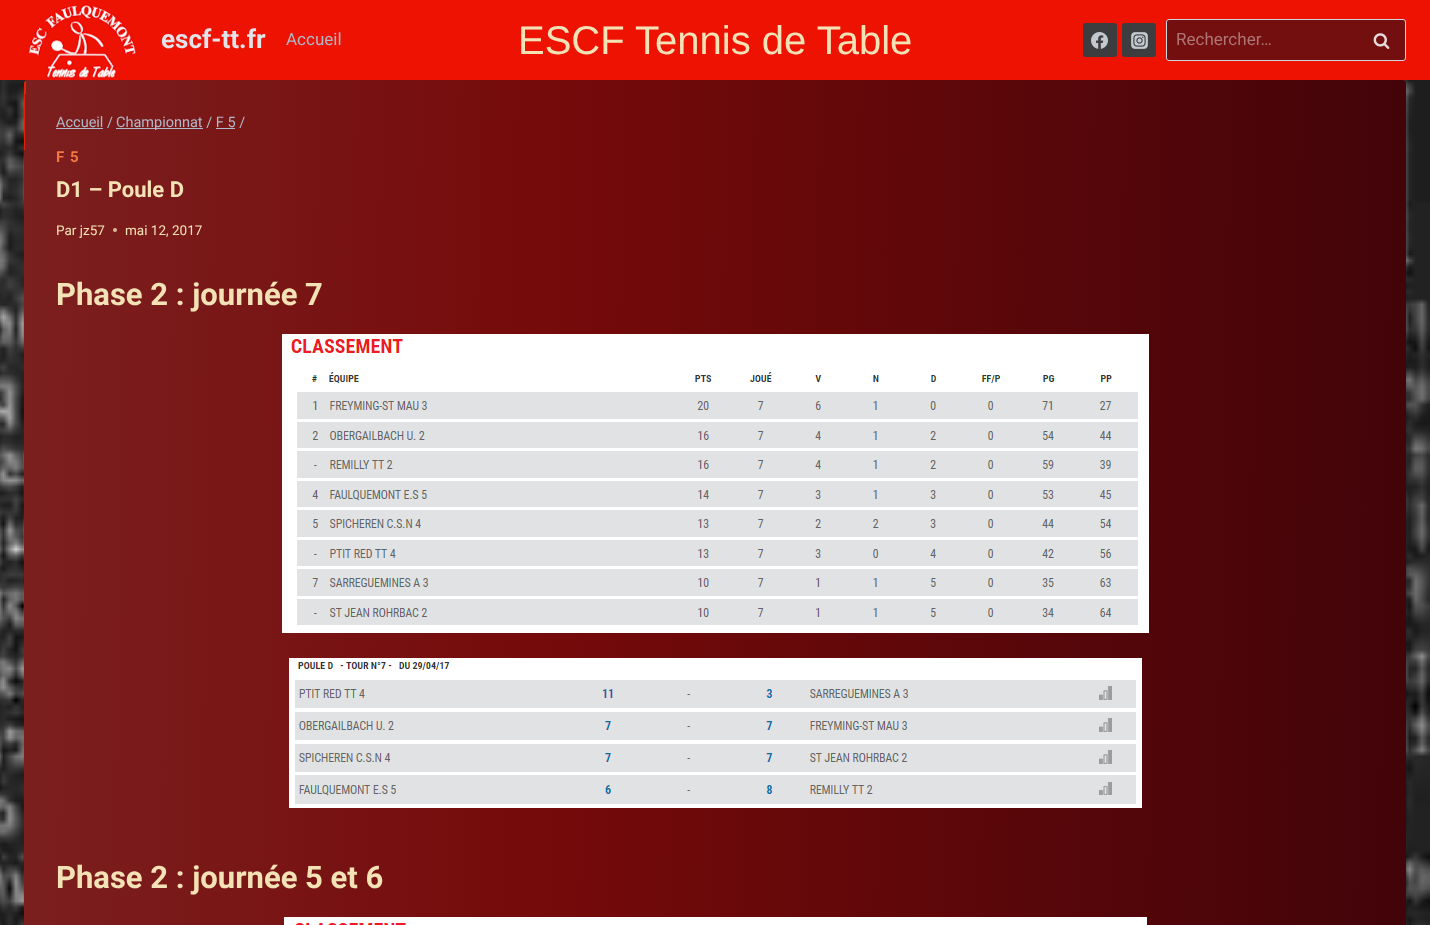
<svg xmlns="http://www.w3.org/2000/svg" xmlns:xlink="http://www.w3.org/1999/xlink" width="1430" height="925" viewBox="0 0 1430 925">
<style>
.cls-1{font:bold 26px Roboto;fill:#e3e3e9}
.cls-2{font:17px Roboto;fill:#b0b9c9}
.cls-3{font:40px Liberation Sans;fill:#f3e2b6}
.cls-4{font:17px Roboto;fill:#ad7575}
.cls-5{font:14.5px Roboto;fill:#b0b9c9}
.cls-6{font:bold 15px Roboto;letter-spacing:1px;fill:#f37742}
.cls-7{font:bold 22px Roboto;fill:#f3e2b6}
.cls-8{font:13.5px Roboto;fill:#f3e2b6}
.cls-9{font:bold 31px Roboto;fill:#f3e2b6}
</style>
<defs>
<linearGradient id="g1" gradientUnits="userSpaceOnUse" x1="-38" y1="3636" x2="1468" y2="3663"><stop offset="0" stop-color="#e32206"/><stop offset="0" stop-color="#7c1f1f"/><stop offset="0.36" stop-color="#750a0a"/><stop offset="1" stop-color="#3b0309"/></linearGradient>
</defs>
<rect width="100%" height="100%" fill="#ffffff"/>
<image xlink:href="image0.png" x="0" y="80" width="1430" height="845"/>
<rect fill="#ee1202" x="0" y="0" width="1430" height="80"/>
<image xlink:href="image1.png" x="28" y="4" width="109" height="75"/>
<rect fill="#3d3d3f" x="1083" y="23" width="34" height="34" rx="3"/>
<image xlink:href="image2.png" x="1091" y="32" width="17" height="17"/>
<rect fill="#3d3d3f" x="1122" y="23" width="34" height="34" rx="3"/>
<image xlink:href="image3.png" x="1131" y="32" width="17" height="17"/>
<rect fill="#740f0f" stroke="#cbd5e0" x="1166.5" y="19.5" width="239" height="41" rx="2.5"/>
<image xlink:href="image4.png" x="1373" y="33" width="17" height="16"/>
<rect fill="url(#g1)" x="24" y="80" width="1382" height="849" rx="4"/>
<rect fill="#b0b9c9" x="56" y="128" width="47" height="1"/>
<rect fill="#b0b9c9" x="116" y="128" width="87" height="1"/>
<rect fill="#b0b9c9" x="216" y="128" width="19" height="1"/>
<circle fill="#dbba97" cx="115" cy="230" r="2"/>
<image xlink:href="image5.png" x="282" y="334" width="867" height="299"/>
<image xlink:href="image6.png" x="289" y="658" width="853" height="150"/>
<image xlink:href="image7.png" x="284" y="917" width="863" height="8"/>
<text class="cls-1" x="161" y="48">escf-tt.fr</text>
<text class="cls-2" x="286" y="45">Accueil</text>
<text class="cls-3" x="518" y="54">ESCF Tennis de Table</text>
<text class="cls-4" x="1176" y="45">Rechercher…</text>
<text class="cls-5" x="56" y="127">Accueil /</text>
<text class="cls-5" x="116" y="127">Championnat / F 5 /</text>
<text class="cls-6" x="56" y="162">F 5</text>
<text class="cls-7" x="56" y="197">D1 – Poule D</text>
<text class="cls-8" x="56" y="235">Par jz57</text>
<text class="cls-8" x="125" y="235">mai 12, 2017</text>
<text class="cls-9" x="56" y="305">Phase 2 : journée 7</text>
<text class="cls-9" x="56" y="888">Phase 2 : journée 5 et 6</text>
</svg>
